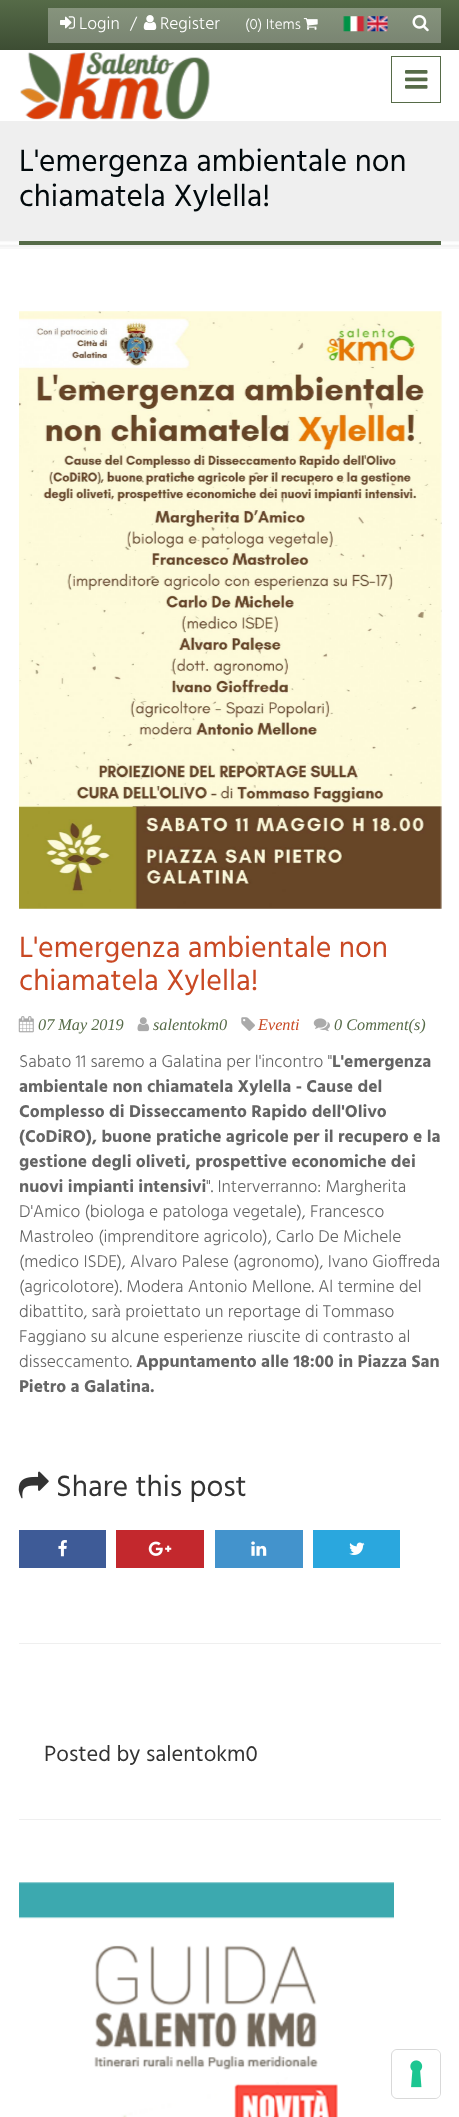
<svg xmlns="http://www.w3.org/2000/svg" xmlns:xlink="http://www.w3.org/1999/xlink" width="459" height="2117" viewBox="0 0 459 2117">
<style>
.cls-1{font:300 17.5px Hind;fill:#ffffff}
.cls-2{font:300 15px Hind;fill:#ffffff}
.cls-3{font:31.5px Hind;fill:#01090c}
.cls-4{font:30px Hind;fill:#c94924}
.cls-5{font:italic 16.25px Liberation Serif;fill:#566b48}
.cls-6{font:italic 16.25px Liberation Serif;fill:#c94924}
.cls-7{font:300 17.5px Hind;fill:#656565}
.cls-8{font:bold 17.5px Hind;fill:#656565}
.cls-9{font:30px Hind;fill:#333333}
.cls-10{font:22.5px Hind;fill:#333333}
</style>
<defs>
<linearGradient id="g1" gradientUnits="userSpaceOnUse" x1="230" y1="0" x2="230" y2="50"><stop offset="0" stop-color="#566b48"/><stop offset="1" stop-color="#3d4d33"/></linearGradient>
<linearGradient id="g2" gradientUnits="userSpaceOnUse" x1="230" y1="0" x2="230" y2="50"><stop offset="0" stop-color="#89977f"/><stop offset="1" stop-color="#778270"/></linearGradient>
</defs>
<rect width="100%" height="100%" fill="#ffffff"/>
<rect fill="url(#g1)" x="0" y="0" width="459" height="50"/>
<rect fill="url(#g2)" x="400" y="8" width="41" height="35"/>
<rect fill="url(#g2)" x="331" y="8" width="69" height="35"/>
<rect fill="url(#g2)" x="233" y="8" width="98" height="35"/>
<rect fill="url(#g2)" x="48" y="8" width="185" height="35"/>
<image xlink:href="image0.png" x="60" y="16" width="15" height="13"/>
<image xlink:href="image1.png" x="143" y="15" width="14" height="15"/>
<image xlink:href="image2.png" x="303" y="18" width="15" height="12"/>
<image xlink:href="image3.png" x="343" y="16" width="22" height="16"/>
<image xlink:href="image4.png" x="367" y="16" width="21" height="16"/>
<image xlink:href="image5.png" x="412" y="15" width="17" height="17"/>
<image xlink:href="image6.png" x="20" y="52" width="190" height="68"/>
<rect fill="none" stroke="#566b48" x="391.5" y="56.5" width="49" height="46"/>
<image xlink:href="image7.png" x="405" y="70" width="23" height="19"/>
<rect fill="#efefef" x="0" y="121" width="459" height="128"/>
<image xlink:href="image8.png" x="0" y="241" width="459" height="8"/>
<rect fill="#566b48" x="19" y="241" width="422" height="4"/>
<rect fill="#efefef" x="19" y="1643" width="422" height="1"/>
<image xlink:href="image9.png" x="19" y="311" width="423" height="598"/>
<image xlink:href="image10.png" x="18" y="1016" width="16" height="17"/>
<image xlink:href="image11.png" x="137" y="1017" width="13" height="15"/>
<image xlink:href="image12.png" x="241" y="1017" width="14" height="14"/>
<image xlink:href="image13.png" x="313" y="1018" width="17" height="14"/>
<image xlink:href="image14.png" x="18" y="1471" width="31" height="28"/>
<rect fill="#3e5b97" x="19" y="1530" width="87" height="38"/>
<image xlink:href="image15.png" x="58" y="1540" width="9" height="17"/>
<rect fill="#c3282d" x="116" y="1530" width="88" height="38"/>
<image xlink:href="image16.png" x="148" y="1541" width="24" height="15"/>
<rect fill="#4393cc" x="215" y="1530" width="88" height="38"/>
<image xlink:href="image17.png" x="251" y="1541" width="16" height="15"/>
<rect fill="#2aa7de" x="313" y="1530" width="87" height="38"/>
<image xlink:href="image18.png" x="349" y="1542" width="16" height="13"/>
<rect fill="#efefef" x="19" y="1819" width="422" height="1"/>
<image xlink:href="image19.png" x="19" y="1882" width="375" height="235"/>
<rect fill="none" stroke="#d9d9d9" x="391.5" y="2049.5" width="49" height="49" rx="5.5"/>
<rect fill="#ffffff" x="393" y="2050" width="47" height="48" rx="5"/>
<image xlink:href="image20.png" x="410" y="2060" width="13" height="28"/>
<text class="cls-1" x="79" y="29">Login</text>
<text class="cls-1" x="130" y="29">/</text>
<text class="cls-1" x="160" y="29">Register</text>
<text class="cls-2" x="245" y="29">(0) Items</text>
<text class="cls-3"><tspan x="19" y="171">L'emergenza ambientale non</tspan><tspan x="19" y="206">chiamatela Xylella!</tspan></text>
<text class="cls-4"><tspan x="19" y="957">L'emergenza ambientale non</tspan><tspan x="19" y="990">chiamatela Xylella!</tspan></text>
<text class="cls-5" x="38" y="1030">07 May 2019</text>
<text class="cls-5" x="153" y="1030">salentokm0</text>
<text class="cls-6" x="258" y="1030">Eventi</text>
<text class="cls-5" x="334" y="1030">0 Comment(s)</text>
<text class="cls-7" x="19" y="1067">Sabato 11 saremo a Galatina per l'incontro "</text>
<text class="cls-8" x="332" y="1067">L'emergenza</text>
<text class="cls-8"><tspan x="19" y="1092">ambientale non chiamatela Xylella - Cause del</tspan><tspan x="19" y="1117">Complesso di Disseccamento Rapido dell'Olivo</tspan><tspan x="19" y="1142">(CoDiRO), buone pratiche agricole per il recupero e la</tspan><tspan x="19" y="1167">gestione degli oliveti, prospettive economiche dei</tspan><tspan x="19" y="1192">nuovi impianti intensivi</tspan></text>
<text class="cls-7" x="206" y="1192">". Interverranno: Margherita</text>
<text class="cls-7"><tspan x="19" y="1217">D'Amico (biologa e patologa vegetale), Francesco</tspan><tspan x="19" y="1242">Mastroleo (imprenditore agricolo), Carlo De Michele</tspan><tspan x="19" y="1267">(medico ISDE), Alvaro Palese (agronomo), Ivano Gioffreda</tspan><tspan x="19" y="1292">(agricolotore). Modera Antonio Mellone. Al termine del</tspan><tspan x="19" y="1317">dibattito, sarà proiettato un reportage di Tommaso</tspan><tspan x="19" y="1342">Faggiano su alcune esperienze riuscite di contrasto al</tspan><tspan x="19" y="1367">disseccamento.</tspan></text>
<text class="cls-8" x="136" y="1367">Appuntamento alle 18:00 in Piazza San</text>
<text class="cls-8" x="19" y="1392">Pietro a Galatina.</text>
<text class="cls-9" x="56" y="1496">Share this post</text>
<text class="cls-10" x="44" y="1761">Posted by salentokm0</text>
</svg>
